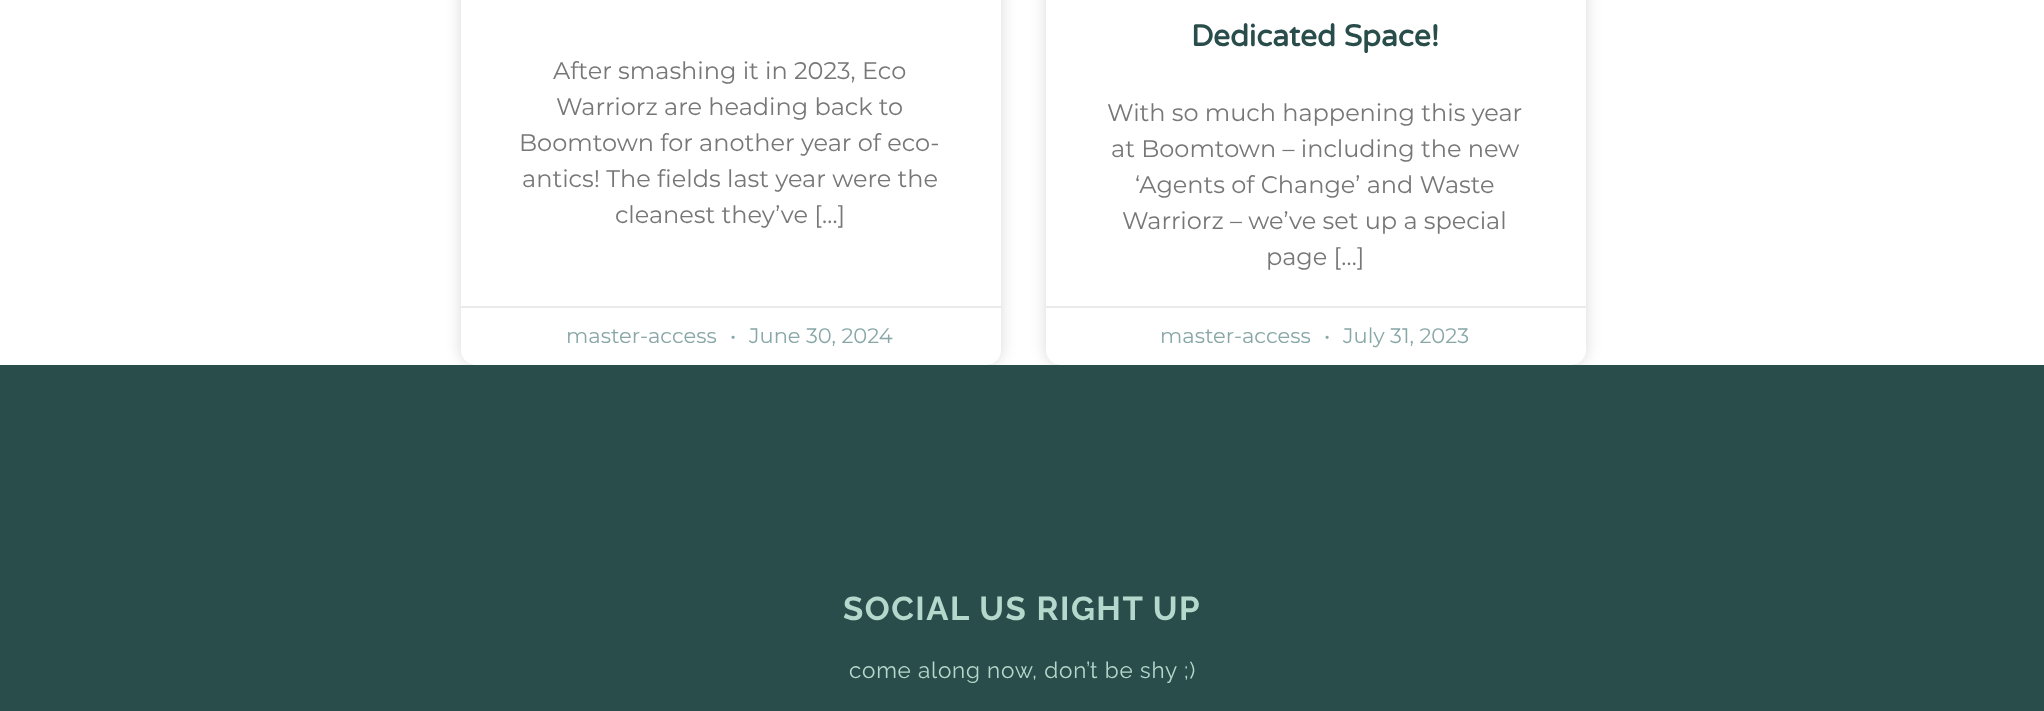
<svg xmlns="http://www.w3.org/2000/svg" xmlns:xlink="http://www.w3.org/1999/xlink" width="2044" height="711" viewBox="0 0 2044 711">
<style>
.cls-1{font:24px Montserrat;fill:#777777}
.cls-2{font:21px Montserrat;fill:#89a7a7}
.cls-3{font:bold 30px Varela Round;fill:#294d4a}
.cls-4{font:bold 33px Raleway;letter-spacing:1.5px;fill:#b5d8cc}
.cls-5{font:22.5px Raleway;letter-spacing:0.75px;fill:#b5d8cc}
</style>
<rect width="100%" height="100%" fill="#ffffff"/>
<rect fill="#000000" fill-opacity="0.15" filter="blur(7.5px)" x="461" y="-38" width="540" height="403" rx="15"/>
<rect fill="#ffffff" x="461" y="-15" width="540" height="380" rx="15"/>
<rect fill="#eaeaea" x="461" y="306" width="540" height="2"/>
<rect fill="#000000" fill-opacity="0.15" filter="blur(7.5px)" x="1046" y="-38" width="540" height="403" rx="15"/>
<rect fill="#ffffff" x="1046" y="-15" width="540" height="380" rx="15"/>
<rect fill="#eaeaea" x="1046" y="306" width="540" height="2"/>
<rect fill="#294d4a" x="0" y="365" width="2044" height="346"/>
<text class="cls-1" x="553" y="79">After smashing it in 2023, Eco</text>
<text class="cls-1" x="556" y="115">Warriorz are heading back to</text>
<text class="cls-1" x="519" y="151">Boomtown for another year of eco-</text>
<text class="cls-1" x="522" y="187">antics! The fields last year were the</text>
<text class="cls-1" x="615" y="223">cleanest they’ve […]</text>
<text class="cls-2" x="566" y="343">master-access</text>
<text class="cls-2" x="730" y="343">•</text>
<text class="cls-2" x="749" y="343">June 30, 2024</text>
<text class="cls-3" x="1191" y="46">Dedicated Space!</text>
<text class="cls-1" x="1107" y="121">With so much happening this year</text>
<text class="cls-1" x="1111" y="157">at Boomtown – including the new</text>
<text class="cls-1" x="1135" y="193">‘Agents of Change’ and Waste</text>
<text class="cls-1" x="1122" y="229">Warriorz – we’ve set up a special</text>
<text class="cls-1" x="1266" y="265">page […]</text>
<text class="cls-2" x="1160" y="343">master-access</text>
<text class="cls-2" x="1324" y="343">•</text>
<text class="cls-2" x="1343" y="343">July 31, 2023</text>
<text class="cls-4" x="843" y="620">SOCIAL US RIGHT UP</text>
<text class="cls-5" x="849" y="678">come along now, don’t be shy ;)</text>
</svg>
